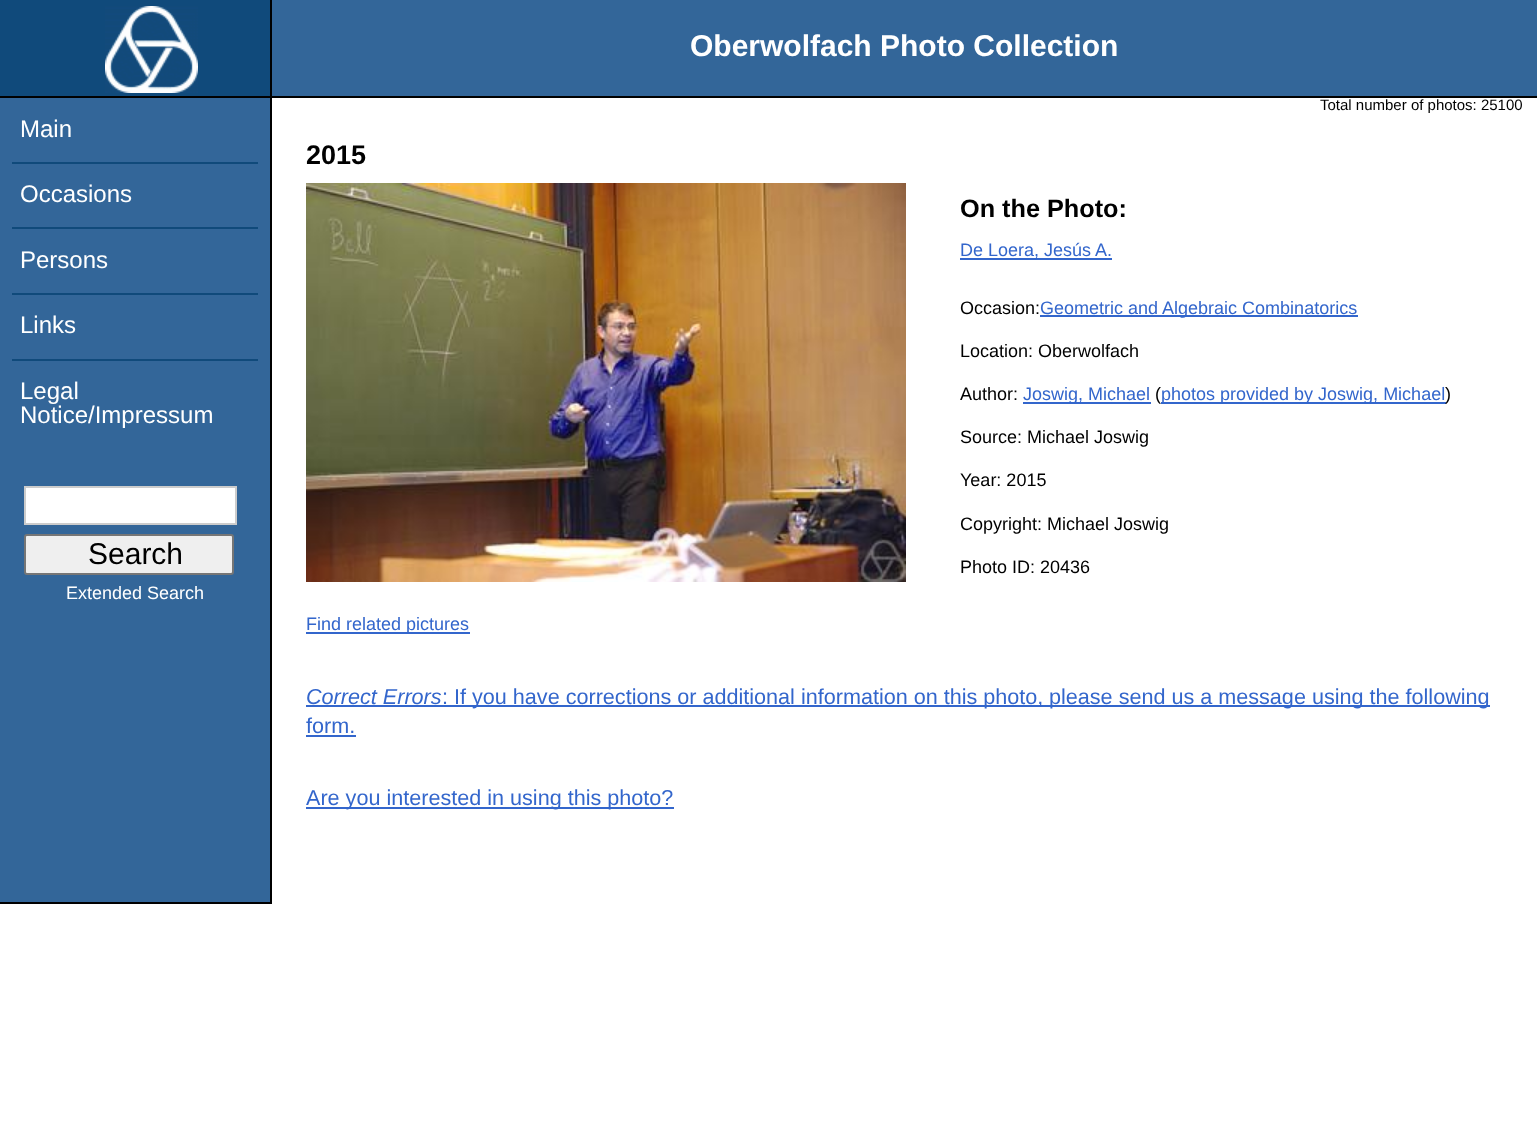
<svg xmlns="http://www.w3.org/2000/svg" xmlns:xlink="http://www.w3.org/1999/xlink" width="1537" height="1137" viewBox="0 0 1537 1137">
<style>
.cls-1{font:bold 30px Liberation Sans;fill:#ffffff}
.cls-2{font:15px Liberation Sans;fill:#000000}
.cls-3{font:24px Liberation Sans;fill:#ffffff}
.cls-4{font:30px Liberation Sans;fill:#000000}
.cls-5{font:18px Liberation Sans;fill:#ffffff}
.cls-6{font:bold 27px Liberation Sans;fill:#000000}
.cls-7{font:bold 25.25px Liberation Sans;fill:#000000}
.cls-8{font:18px Liberation Sans;fill:#3366cc}
.cls-9{font:18px Liberation Sans;fill:#000000}
.cls-10{font:italic 21.6px Liberation Sans;fill:#3366cc}
.cls-11{font:21.6px Liberation Sans;fill:#3366cc}
</style>
<rect width="100%" height="100%" fill="#ffffff"/>
<rect fill="#336699" x="272" y="0" width="1265" height="96"/>
<rect fill="#000000" x="0" y="96" width="1537" height="2"/>
<rect fill="#104a7b" x="0" y="0" width="270" height="96"/>
<rect fill="#000000" x="270" y="0" width="2" height="96"/>
<image xlink:href="image0.png" x="105" y="6" width="93" height="87"/>
<rect fill="#336699" x="0" y="98" width="270" height="804"/>
<rect fill="#000000" x="270" y="98" width="2" height="805"/>
<rect fill="#000000" x="0" y="902" width="272" height="2"/>
<rect fill="#104a7b" x="12" y="162" width="246" height="2"/>
<rect fill="#104a7b" x="12" y="227" width="246" height="2"/>
<rect fill="#104a7b" x="12" y="293" width="246" height="2"/>
<rect fill="#104a7b" x="12" y="359" width="246" height="2"/>
<rect fill="#ffffff" stroke="#cccccc" stroke-width="2" x="25" y="487" width="211" height="37"/>
<rect fill="#efefef" stroke="#767676" stroke-width="2" x="25" y="535" width="208" height="39" rx="2"/>
<image xlink:href="image1.png" x="306" y="183" width="600" height="399"/>
<rect fill="#3366cc" x="960" y="258" width="152" height="2"/>
<rect fill="#3366cc" x="1040" y="315" width="318" height="2"/>
<rect fill="#3366cc" x="1023" y="402" width="128" height="2"/>
<rect fill="#3366cc" x="1161" y="402" width="285" height="2"/>
<rect fill="#3366cc" x="306" y="632" width="164" height="2"/>
<rect fill="#3366cc" x="306" y="705" width="1184" height="2"/>
<rect fill="#3366cc" x="306" y="735" width="50" height="2"/>
<rect fill="#3366cc" x="306" y="807" width="368" height="2"/>
<text class="cls-1" x="690" y="56">Oberwolfach Photo Collection</text>
<text class="cls-2" x="1320" y="110">Total number of photos: 25100</text>
<text class="cls-3" x="20" y="137">Main</text>
<text class="cls-3" x="20" y="202">Occasions</text>
<text class="cls-3" x="20" y="268">Persons</text>
<text class="cls-3" x="20" y="333">Links</text>
<text class="cls-3"><tspan x="20" y="399">Legal</tspan><tspan x="20" y="423">Notice/Impressum</tspan></text>
<text class="cls-4" x="88" y="564">Search</text>
<text class="cls-5" x="66" y="599">Extended Search</text>
<text class="cls-6" x="306" y="164">2015</text>
<text class="cls-7" x="960" y="217">On the Photo:</text>
<text class="cls-8" x="960" y="256">De Loera, Jesús A.</text>
<text class="cls-9" x="960" y="314">Occasion:</text>
<text class="cls-8" x="1040" y="314">Geometric and Algebraic Combinatorics</text>
<text class="cls-9" x="960" y="357">Location: Oberwolfach</text>
<text class="cls-9" x="960" y="400">Author:</text>
<text class="cls-8" x="1023" y="400">Joswig, Michael</text>
<text class="cls-9" x="1155" y="400">(</text>
<text class="cls-8" x="1161" y="400">photos provided by Joswig, Michael</text>
<text class="cls-9" x="1445" y="400">)</text>
<text class="cls-9" x="960" y="443">Source: Michael Joswig</text>
<text class="cls-9" x="960" y="486">Year: 2015</text>
<text class="cls-9" x="960" y="530">Copyright: Michael Joswig</text>
<text class="cls-9" x="960" y="573">Photo ID: 20436</text>
<text class="cls-8" x="306" y="630">Find related pictures</text>
<text class="cls-10" x="306" y="704">Correct Errors</text>
<text class="cls-11" x="442" y="704">: If you have corrections or additional information on this photo,</text>
<text class="cls-11" x="1049" y="704">please send us a message using the following</text>
<text class="cls-11" x="306" y="733">form.</text>
<text class="cls-11" x="306" y="805">Are you interested in using this photo?</text>
</svg>
